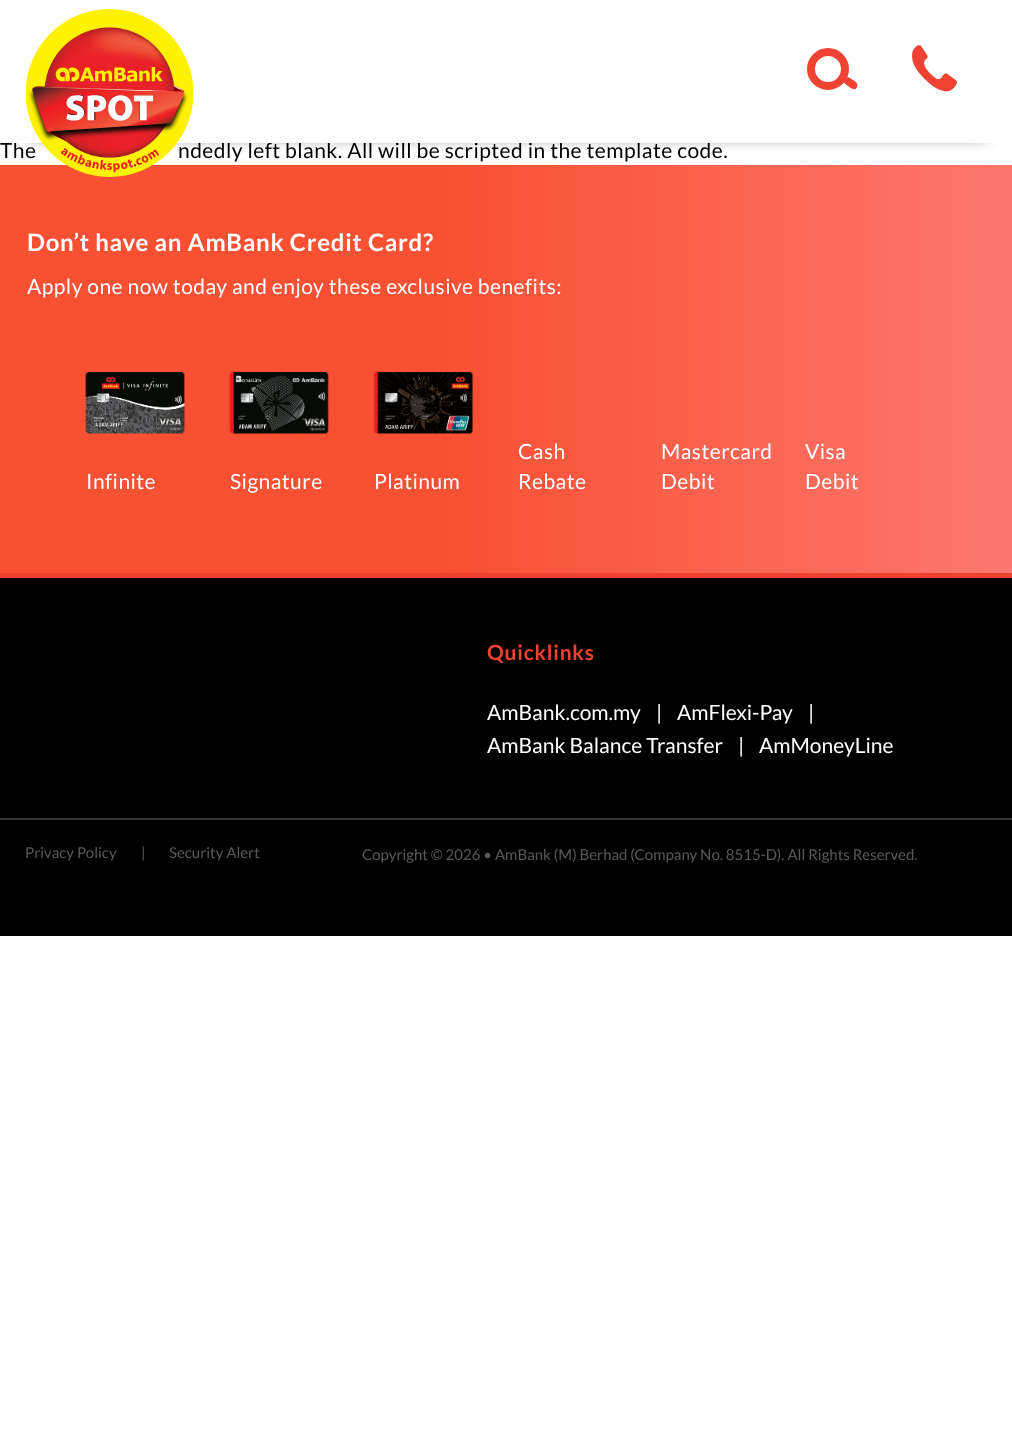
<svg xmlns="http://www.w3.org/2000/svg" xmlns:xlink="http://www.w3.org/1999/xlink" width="1012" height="1434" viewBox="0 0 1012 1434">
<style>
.cls-1{font:21px Lato;letter-spacing:0.45px;fill:#000000}
.cls-2{font:bold 24px Lato;letter-spacing:0.75px;fill:#ffffff}
.cls-3{font:21px Lato;letter-spacing:0.45px;fill:#ffffff}
.cls-4{font:bold 21px Lato;letter-spacing:0.75px;fill:#ef4233}
.cls-5{font:21px Lato;fill:#ffffff}
.cls-6{font:15px Lato;fill:#59595b}
</style>
<defs>
<linearGradient id="g1" gradientUnits="userSpaceOnUse" x1="0" y1="369" x2="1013" y2="369"><stop offset="0" stop-color="#f85032"/><stop offset="0.44" stop-color="#f85032"/><stop offset="1" stop-color="#fd7770"/></linearGradient>
</defs>
<rect width="100%" height="100%" fill="#ffffff"/>
<rect fill="#111111" filter="blur(7.5px)" x="27" y="47" width="959" height="88"/>
<rect fill="url(#g1)" x="0" y="165" width="1012" height="408"/>
<image xlink:href="image2.png" x="85" y="372" width="100" height="62"/>
<image xlink:href="image3.png" x="229" y="372" width="100" height="62"/>
<image xlink:href="image4.png" x="373" y="372" width="100" height="62"/>
<rect fill="#000000" x="0" y="578" width="1012" height="358"/>
<rect fill="#ef4231" x="0" y="573" width="1012" height="5"/>
<rect fill="#353535" x="0" y="818" width="1012" height="2"/>
<text class="cls-1" x="0" y="158">The</text>
<text class="cls-1" x="178" y="158">ndedly left blank. All will be scripted in the template code.</text>
<rect fill="#ffffff" x="0" y="30" width="1003" height="113"/>
<image xlink:href="image1.png" x="912" y="45" width="45" height="47"/>
<circle fill="none" stroke="#ef4233" stroke-width="8" cx="828" cy="69" r="17"/>
<path fill="#ef4233" d="M850 78C851.5 79.5 856 81.5 857 83.5C857.5 84.5 857.5 86 857 87C855 92.5 848 86 845.5 84C841.5 81.5 846 75 850 78Z"/>
<image xlink:href="image0.png" x="26" y="9" width="168" height="168"/>
<text class="cls-2" x="27" y="251">Don’t have an AmBank Credit Card?</text>
<text class="cls-3" x="27" y="294">Apply one now today and enjoy these exclusive benefits:</text>
<text class="cls-3" x="86" y="489">Infinite</text>
<text class="cls-3" x="230" y="489">Signature</text>
<text class="cls-3" x="374" y="489">Platinum</text>
<text class="cls-3"><tspan x="518" y="459">Cash</tspan><tspan x="518" y="489">Rebate</tspan></text>
<text class="cls-3"><tspan x="661" y="459">Mastercard</tspan><tspan x="661" y="489">Debit</tspan></text>
<text class="cls-3"><tspan x="805" y="459">Visa</tspan><tspan x="805" y="489">Debit</tspan></text>
<text class="cls-4" x="487" y="660">Quicklinks</text>
<text class="cls-5" x="487" y="720">AmBank.com.my</text>
<text class="cls-5" x="656" y="720">|</text>
<text class="cls-5" x="677" y="720">AmFlexi-Pay</text>
<text class="cls-5" x="808" y="720">|</text>
<text class="cls-5" x="487" y="753">AmBank Balance Transfer</text>
<text class="cls-5" x="738" y="753">|</text>
<text class="cls-5" x="759" y="753">AmMoneyLine</text>
<text class="cls-6" x="25" y="858">Privacy Policy</text>
<text class="cls-6" x="141" y="858">|</text>
<text class="cls-6" x="169" y="858">Security Alert</text>
<text class="cls-6" x="362" y="860">Copyright © 2026 • AmBank (M) Berhad (Company No. 8515-D). All Rights Reserved.</text>
</svg>
